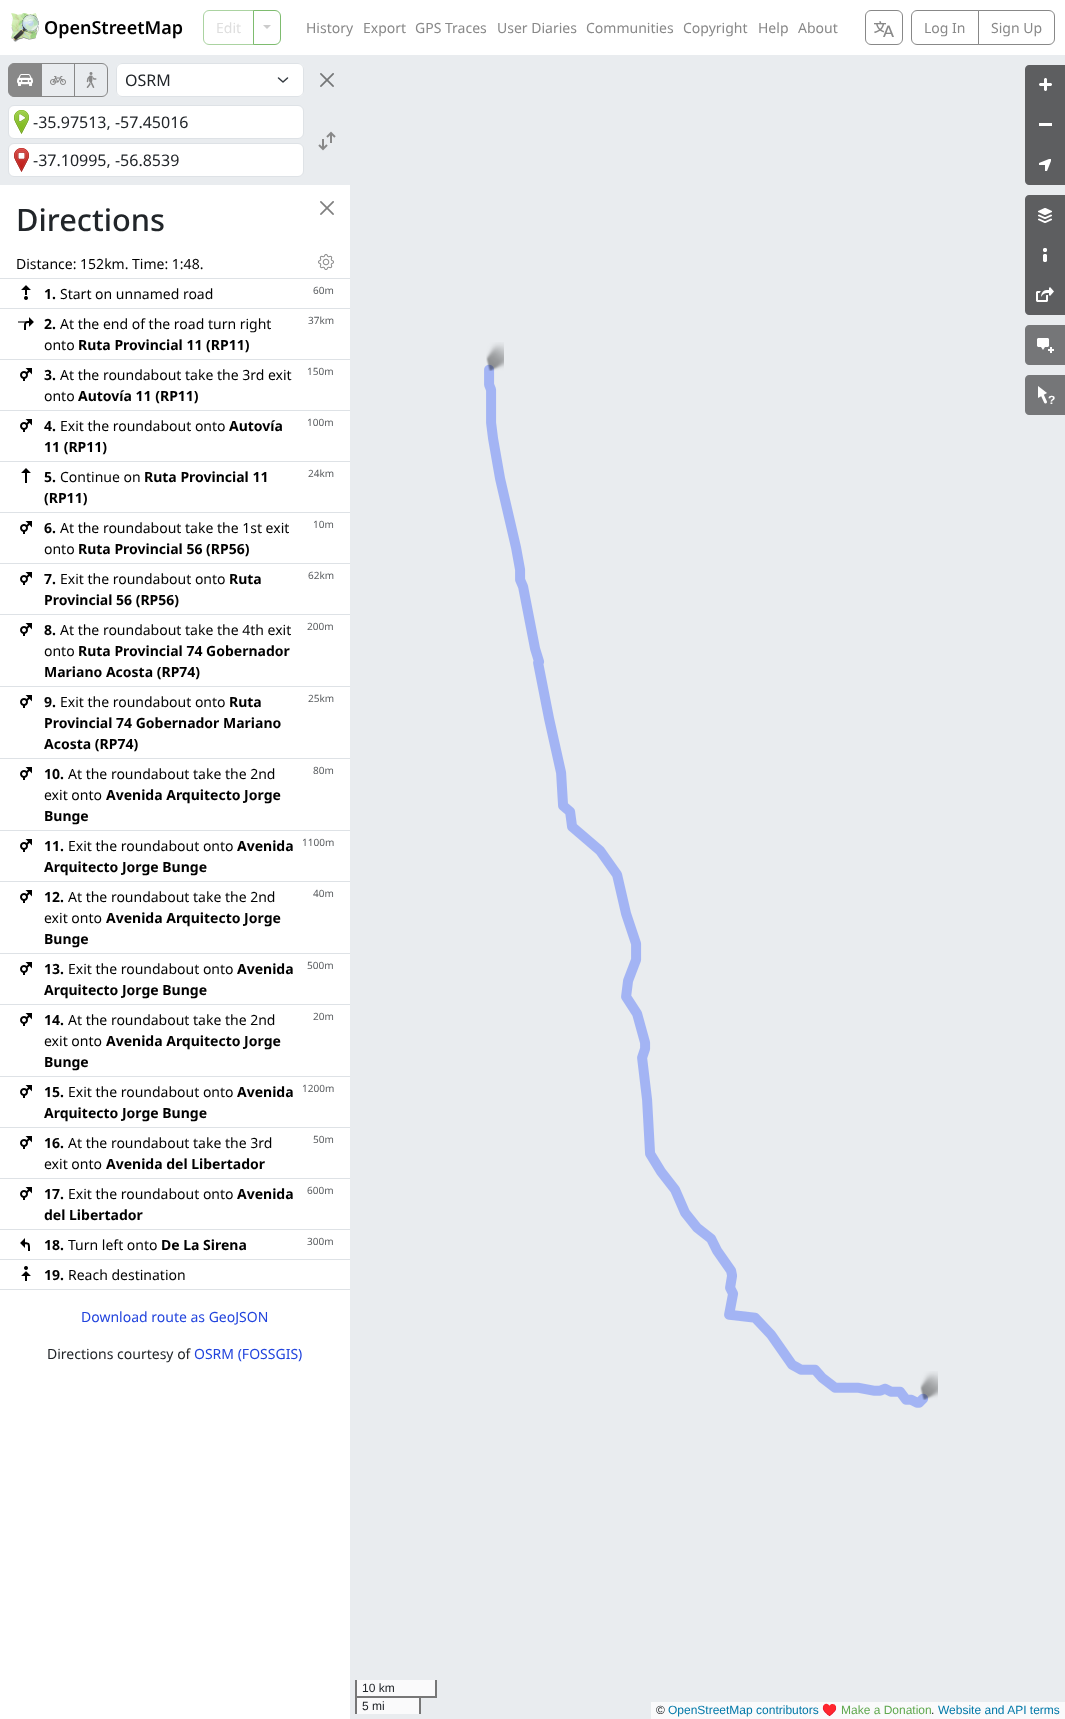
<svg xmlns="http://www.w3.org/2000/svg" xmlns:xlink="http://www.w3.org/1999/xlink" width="1065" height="1719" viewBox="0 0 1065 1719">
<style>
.cls-1{font:600 18px Noto Sans;fill:#000000}
.cls-2{font:14px Noto Sans;fill:#dedede}
.cls-3{font:14px Noto Sans;fill:#888888}
.cls-4{font:16px Noto Sans;fill:#212529}
.cls-5{font:500 30.75px Noto Sans;fill:#212529}
.cls-6{font:14px Noto Sans;fill:#000000}
.cls-7{font:bold 14px Noto Sans;fill:#000000}
.cls-8{font:10px Noto Sans;fill:#595c5f}
.cls-9{font:14px Noto Sans;fill:#2244dd}
.cls-10{font:14px Noto Sans;fill:#212529}
.cls-11{font:bold 12px Liberation Sans;fill:#ffffff}
.cls-12{font:12px Liberation Sans;fill:#212529}
.cls-13{font:12px Liberation Sans;fill:#0078a8}
.cls-14{font:12px Noto Color Emoji;fill:#212529}
.cls-15{font:12px Liberation Sans;fill:#60a94f}
</style>
<rect width="100%" height="100%" fill="#ffffff"/>
<image xlink:href="image0.png" x="11" y="13" width="28" height="29"/>
<path fill="none" stroke="#abd3a1" d="M209 10.5H253.5V44.5H209C206 44.5 203.5 42 203.5 39V16C203.5 13 206 10.5 209 10.5Z"/>
<path fill="none" stroke="#7ebc6f" d="M253.5 10.5H275C278 10.5 280.5 13 280.5 16V39C280.5 42 278 44.5 275 44.5H253.5Z"/>
<path fill="#cccccc" d="M263 25H271L267 29Z"/>
<rect fill="none" stroke="#888888" x="865.5" y="10.5" width="37" height="34" rx="5.5"/>
<image xlink:href="image1.png" x="874" y="21" width="20" height="16"/>
<path fill="none" stroke="#888888" d="M917 10.5H978.5V44.5H917C914 44.5 911.5 42 911.5 39V16C911.5 13 914 10.5 917 10.5Z"/>
<path fill="none" stroke="#888888" d="M978.5 10.5H1049C1052 10.5 1054.5 13 1054.5 16V39C1054.5 42 1052 44.5 1049 44.5H978.5Z"/>
<rect fill="#e9ecef" x="0" y="55" width="350" height="130"/>
<rect fill="none" stroke="#888888" x="41.5" y="63.5" width="33" height="33"/>
<path fill="#888888" stroke="#888888" d="M14 63.5H41.5V96.5H14C11 96.5 8.5 94 8.5 91V69C8.5 66 11 63.5 14 63.5Z"/>
<image xlink:href="image2.png" x="17" y="74" width="16" height="12"/>
<image xlink:href="image3.png" x="50" y="76" width="16" height="9"/>
<path fill="none" stroke="#888888" d="M74.5 63.5H102C105 63.5 107.5 66 107.5 69V91C107.5 94 105 96.5 102 96.5H74.5Z"/>
<image xlink:href="image4.png" x="86" y="72" width="11" height="16"/>
<rect fill="#ffffff" x="116" y="63" width="188" height="34" rx="6"/>
<path fill="none" stroke="#343a40" stroke-width="1.5" stroke-linecap="round" stroke-linejoin="round" d="M278.5 78L283 82L287.5 78"/>
<rect fill="none" stroke="#dee2e6" x="116.5" y="63.5" width="187" height="33" rx="5.5"/>
<image xlink:href="image5.png" x="320" y="73" width="14" height="14"/>
<rect fill="#ffffff" stroke="#dee2e6" x="8.5" y="105.5" width="295" height="33" rx="5.5"/>
<image xlink:href="image6.png" x="14" y="110" width="15" height="24"/>
<rect fill="#ffffff" stroke="#dee2e6" x="8.5" y="143.5" width="295" height="33" rx="5.5"/>
<image xlink:href="image7.png" x="14" y="148" width="15" height="24"/>
<image xlink:href="image8.png" x="318" y="131" width="18" height="20"/>
<image xlink:href="image9.png" x="320" y="201" width="14" height="14"/>
<rect fill="#dee2e6" x="0" y="278" width="350" height="1"/>
<image xlink:href="image10.png" x="318" y="254" width="16" height="16"/>
<image xlink:href="image11.png" x="21" y="285" width="10" height="15"/>
<rect fill="#dee2e6" x="0" y="308" width="350" height="1"/>
<image xlink:href="image12.png" x="18" y="317" width="16" height="13"/>
<rect fill="#dee2e6" x="0" y="359" width="350" height="1"/>
<image xlink:href="image13.png" x="20" y="368" width="12" height="13"/>
<rect fill="#dee2e6" x="0" y="410" width="350" height="1"/>
<image xlink:href="image13.png" x="20" y="419" width="12" height="13"/>
<rect fill="#dee2e6" x="0" y="461" width="350" height="1"/>
<path fill="none" stroke="#000000" stroke-width="2" d="M26 483V470M28.5 472L26 469.5L23.5 472Z"/>
<rect fill="#dee2e6" x="0" y="512" width="350" height="1"/>
<image xlink:href="image13.png" x="20" y="521" width="12" height="13"/>
<rect fill="#dee2e6" x="0" y="563" width="350" height="1"/>
<image xlink:href="image13.png" x="20" y="572" width="12" height="13"/>
<rect fill="#dee2e6" x="0" y="614" width="350" height="1"/>
<image xlink:href="image13.png" x="20" y="623" width="12" height="13"/>
<rect fill="#dee2e6" x="0" y="686" width="350" height="1"/>
<image xlink:href="image13.png" x="20" y="695" width="12" height="13"/>
<rect fill="#dee2e6" x="0" y="758" width="350" height="1"/>
<image xlink:href="image13.png" x="20" y="767" width="12" height="13"/>
<rect fill="#dee2e6" x="0" y="830" width="350" height="1"/>
<image xlink:href="image13.png" x="20" y="839" width="12" height="13"/>
<rect fill="#dee2e6" x="0" y="881" width="350" height="1"/>
<image xlink:href="image13.png" x="20" y="890" width="12" height="13"/>
<rect fill="#dee2e6" x="0" y="953" width="350" height="1"/>
<image xlink:href="image13.png" x="20" y="962" width="12" height="13"/>
<rect fill="#dee2e6" x="0" y="1004" width="350" height="1"/>
<image xlink:href="image13.png" x="20" y="1013" width="12" height="13"/>
<rect fill="#dee2e6" x="0" y="1076" width="350" height="1"/>
<image xlink:href="image13.png" x="20" y="1085" width="12" height="13"/>
<rect fill="#dee2e6" x="0" y="1127" width="350" height="1"/>
<image xlink:href="image13.png" x="20" y="1136" width="12" height="13"/>
<rect fill="#dee2e6" x="0" y="1178" width="350" height="1"/>
<image xlink:href="image13.png" x="20" y="1187" width="12" height="13"/>
<rect fill="#dee2e6" x="0" y="1229" width="350" height="1"/>
<path fill="none" stroke="#000000" stroke-width="2" d="M29 1251C29 1243.5 30 1243 22 1243M24 1245.5L21.5 1243L24 1240.5Z"/>
<rect fill="#dee2e6" x="0" y="1259" width="350" height="1"/>
<image xlink:href="image14.png" x="21" y="1266" width="10" height="15"/>
<rect fill="#dee2e6" x="0" y="1289" width="350" height="1"/>
<rect fill="#e9ecef" x="350" y="55" width="715" height="1664"/>
<rect fill="#fafafb" x="357" y="1698" width="62" height="16"/>
<image xlink:href="image17.png" x="484" y="364" width="444" height="1044"/>
<image xlink:href="image15.png" x="486" y="342" width="18" height="29"/>
<image xlink:href="image16.png" x="920" y="1371" width="18" height="29"/>
<path fill="#5d5e60" d="M1029 65H1065V105H1025V69C1025 67 1027 65 1029 65Z"/>
<image xlink:href="image18.png" x="1039" y="78" width="13" height="13"/>
<rect fill="#5d5e60" x="1025" y="105" width="40" height="40"/>
<rect fill="#ffffff" x="1039" y="123" width="13" height="3"/>
<path fill="#5d5e60" d="M1025 145H1065V185H1029C1027 185 1025 183 1025 181Z"/>
<image xlink:href="image19.png" x="1039" y="159" width="12" height="12"/>
<path fill="#5d5e60" d="M1029 195H1065V235H1025V199C1025 197 1027 195 1029 195Z"/>
<image xlink:href="image20.png" x="1038" y="208" width="14" height="15"/>
<rect fill="#5d5e60" x="1025" y="235" width="40" height="40"/>
<image xlink:href="image21.png" x="1043" y="248" width="4" height="14"/>
<path fill="#5d5e60" d="M1025 275H1065V315H1029C1027 315 1025 313 1025 311Z"/>
<image xlink:href="image22.png" x="1036" y="287" width="18" height="15"/>
<path fill="#757678" d="M1029 325H1065V365H1029C1027 365 1025 363 1025 361V329C1025 327 1027 325 1029 325Z"/>
<image xlink:href="image23.png" x="1037" y="338" width="17" height="15"/>
<path fill="#757678" d="M1029 375H1065V415H1029C1027 415 1025 413 1025 411V379C1025 377 1027 375 1029 375Z"/>
<image xlink:href="image24.png" x="1038" y="386" width="9" height="18"/>
<rect fill="#fafafb" x="357" y="1680" width="78" height="16"/>
<rect fill="#777777" x="435" y="1680" width="2" height="18"/>
<rect fill="#777777" x="421" y="1696" width="16" height="2"/>
<rect fill="#777777" x="355" y="1680" width="2" height="18"/>
<rect fill="#777777" x="355" y="1696" width="66" height="2"/>
<rect fill="#777777" x="419" y="1696" width="2" height="18"/>
<rect fill="#777777" x="355" y="1696" width="2" height="18"/>
<rect fill="#fafafb" x="651" y="1702" width="414" height="17"/>
<text class="cls-1" x="44" y="34">OpenStreetMap</text>
<text class="cls-2" x="216" y="33">Edit</text>
<text class="cls-3" x="306" y="33">History</text>
<text class="cls-3" x="363" y="33">Export</text>
<text class="cls-3" x="415" y="33">GPS Traces</text>
<text class="cls-3" x="497" y="33">User Diaries</text>
<text class="cls-3" x="586" y="33">Communities</text>
<text class="cls-3" x="683" y="33">Copyright</text>
<text class="cls-3" x="758" y="33">Help</text>
<text class="cls-3" x="798" y="33">About</text>
<text class="cls-3" x="924" y="33">Log In</text>
<text class="cls-3" x="991" y="33">Sign Up</text>
<text class="cls-4" x="125" y="86">OSRM</text>
<text class="cls-4" x="33" y="128">-35.97513, -57.45016</text>
<text class="cls-4" x="33" y="166">-37.10995, -56.8539</text>
<text class="cls-5" x="16" y="231">Directions</text>
<text class="cls-6" x="16" y="269">Distance: 152km. Time: 1:48.</text>
<text class="cls-7" x="44" y="299">1.</text>
<text class="cls-6" x="60" y="299">Start on unnamed road</text>
<text class="cls-8" x="313" y="294">60m</text>
<text class="cls-7" x="44" y="329">2.</text>
<text class="cls-6" x="60" y="329">At the end of the road turn right</text>
<text class="cls-6" x="44" y="350">onto</text>
<text class="cls-7" x="78" y="350">Ruta Provincial 11 (RP11)</text>
<text class="cls-8" x="308" y="324">37km</text>
<text class="cls-7" x="44" y="380">3.</text>
<text class="cls-6" x="60" y="380">At the roundabout take the 3rd exit</text>
<text class="cls-6" x="44" y="401">onto</text>
<text class="cls-7" x="78" y="401">Autovía 11 (RP11)</text>
<text class="cls-8" x="307" y="375">150m</text>
<text class="cls-7" x="44" y="431">4.</text>
<text class="cls-6" x="60" y="431">Exit the roundabout onto</text>
<text class="cls-7" x="229" y="431">Autovía</text>
<text class="cls-7" x="44" y="452">11 (RP11)</text>
<text class="cls-8" x="307" y="426">100m</text>
<text class="cls-7" x="44" y="482">5.</text>
<text class="cls-6" x="60" y="482">Continue on</text>
<text class="cls-7" x="144" y="482">Ruta Provincial 11</text>
<text class="cls-7" x="44" y="503">(RP11)</text>
<text class="cls-8" x="308" y="477">24km</text>
<text class="cls-7" x="44" y="533">6.</text>
<text class="cls-6" x="60" y="533">At the roundabout take the 1st exit</text>
<text class="cls-6" x="44" y="554">onto</text>
<text class="cls-7" x="78" y="554">Ruta Provincial 56 (RP56)</text>
<text class="cls-8" x="313" y="528">10m</text>
<text class="cls-7" x="44" y="584">7.</text>
<text class="cls-6" x="60" y="584">Exit the roundabout onto</text>
<text class="cls-7" x="229" y="584">Ruta</text>
<text class="cls-7" x="44" y="605">Provincial 56 (RP56)</text>
<text class="cls-8" x="308" y="579">62km</text>
<text class="cls-7" x="44" y="635">8.</text>
<text class="cls-6" x="60" y="635">At the roundabout take the 4th exit</text>
<text class="cls-6" x="44" y="656">onto</text>
<text class="cls-7" x="78" y="656">Ruta Provincial 74 Gobernador</text>
<text class="cls-7" x="44" y="677">Mariano Acosta (RP74)</text>
<text class="cls-8" x="307" y="630">200m</text>
<text class="cls-7" x="44" y="707">9.</text>
<text class="cls-6" x="60" y="707">Exit the roundabout onto</text>
<text class="cls-7" x="229" y="707">Ruta</text>
<text class="cls-7"><tspan x="44" y="728">Provincial 74 Gobernador Mariano</tspan><tspan x="44" y="749">Acosta (RP74)</tspan></text>
<text class="cls-8" x="308" y="702">25km</text>
<text class="cls-7" x="44" y="779">10.</text>
<text class="cls-6" x="68" y="779">At the roundabout take the 2nd</text>
<text class="cls-6" x="44" y="800">exit onto</text>
<text class="cls-7" x="106" y="800">Avenida Arquitecto Jorge</text>
<text class="cls-7" x="44" y="821">Bunge</text>
<text class="cls-8" x="313" y="774">80m</text>
<text class="cls-7" x="44" y="851">11.</text>
<text class="cls-6" x="68" y="851">Exit the roundabout onto</text>
<text class="cls-7" x="237" y="851">Avenida</text>
<text class="cls-7" x="44" y="872">Arquitecto Jorge Bunge</text>
<text class="cls-8" x="302" y="846">1100m</text>
<text class="cls-7" x="44" y="902">12.</text>
<text class="cls-6" x="68" y="902">At the roundabout take the 2nd</text>
<text class="cls-6" x="44" y="923">exit onto</text>
<text class="cls-7" x="106" y="923">Avenida Arquitecto Jorge</text>
<text class="cls-7" x="44" y="944">Bunge</text>
<text class="cls-8" x="313" y="897">40m</text>
<text class="cls-7" x="44" y="974">13.</text>
<text class="cls-6" x="68" y="974">Exit the roundabout onto</text>
<text class="cls-7" x="237" y="974">Avenida</text>
<text class="cls-7" x="44" y="995">Arquitecto Jorge Bunge</text>
<text class="cls-8" x="307" y="969">500m</text>
<text class="cls-7" x="44" y="1025">14.</text>
<text class="cls-6" x="68" y="1025">At the roundabout take the 2nd</text>
<text class="cls-6" x="44" y="1046">exit onto</text>
<text class="cls-7" x="106" y="1046">Avenida Arquitecto Jorge</text>
<text class="cls-7" x="44" y="1067">Bunge</text>
<text class="cls-8" x="313" y="1020">20m</text>
<text class="cls-7" x="44" y="1097">15.</text>
<text class="cls-6" x="68" y="1097">Exit the roundabout onto</text>
<text class="cls-7" x="237" y="1097">Avenida</text>
<text class="cls-7" x="44" y="1118">Arquitecto Jorge Bunge</text>
<text class="cls-8" x="302" y="1092">1200m</text>
<text class="cls-7" x="44" y="1148">16.</text>
<text class="cls-6" x="68" y="1148">At the roundabout take the 3rd</text>
<text class="cls-6" x="44" y="1169">exit onto</text>
<text class="cls-7" x="106" y="1169">Avenida del Libertador</text>
<text class="cls-8" x="313" y="1143">50m</text>
<text class="cls-7" x="44" y="1199">17.</text>
<text class="cls-6" x="68" y="1199">Exit the roundabout onto</text>
<text class="cls-7" x="237" y="1199">Avenida</text>
<text class="cls-7" x="44" y="1220">del Libertador</text>
<text class="cls-8" x="307" y="1194">600m</text>
<text class="cls-7" x="44" y="1250">18.</text>
<text class="cls-6" x="68" y="1250">Turn left onto</text>
<text class="cls-7" x="161" y="1250">De La Sirena</text>
<text class="cls-8" x="307" y="1245">300m</text>
<text class="cls-7" x="44" y="1280">19.</text>
<text class="cls-6" x="68" y="1280">Reach destination</text>
<text class="cls-9" x="81" y="1322">Download route as GeoJSON</text>
<text class="cls-10" x="47" y="1359">Directions courtesy of</text>
<text class="cls-9" x="194" y="1359">OSRM (FOSSGIS)</text>
<text class="cls-11" x="1048" y="404">?</text>
<text class="cls-12"><tspan x="362" y="1692">10 km</tspan><tspan x="362" y="1710">5 mi</tspan></text>
<text class="cls-12" x="656" y="1714">©</text>
<text class="cls-13" x="668" y="1714">OpenStreetMap contributors</text>
<text class="cls-14" x="822" y="1714">♥️</text>
<text class="cls-15" x="841" y="1714">Make a Donation</text>
<text class="cls-12" x="931" y="1714">.</text>
<text class="cls-13" x="938" y="1714">Website and API terms</text>
</svg>
